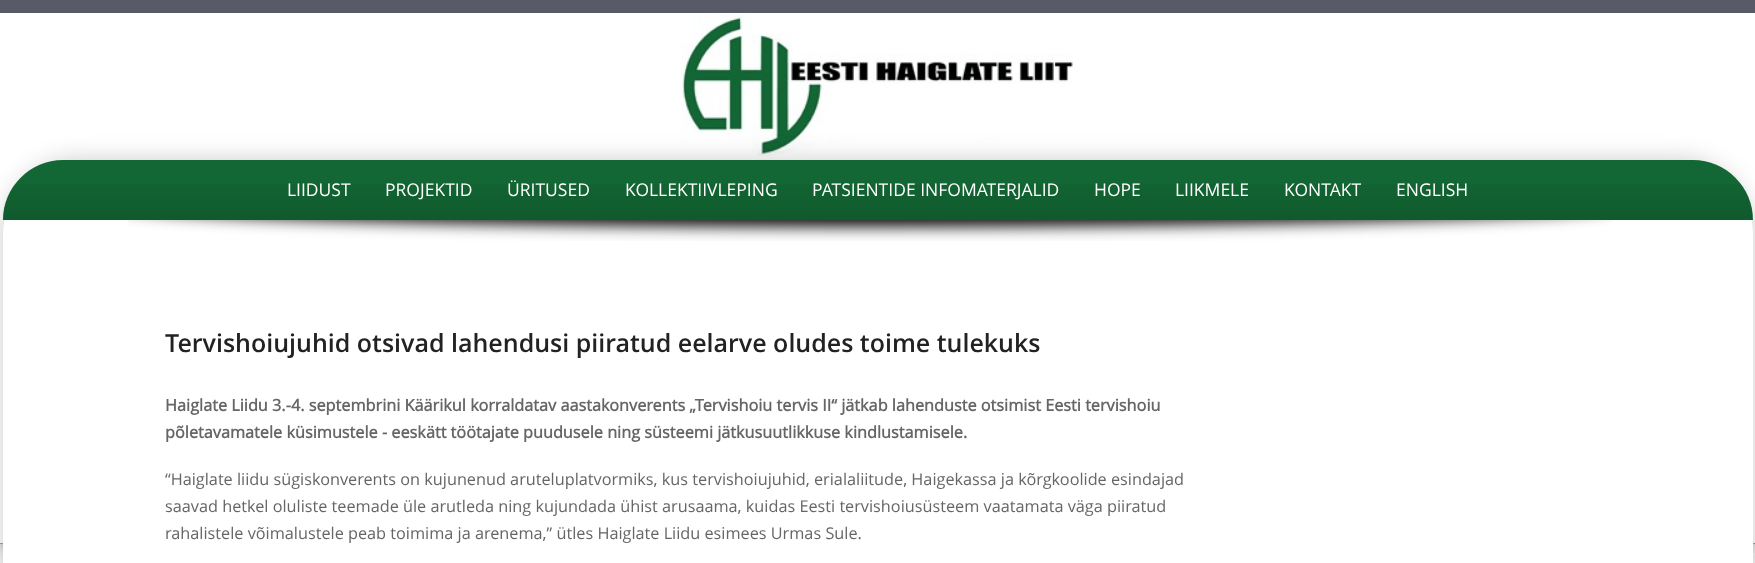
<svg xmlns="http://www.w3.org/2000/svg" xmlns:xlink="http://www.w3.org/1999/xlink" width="1755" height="563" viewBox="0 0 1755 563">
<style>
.cls-1{font:17.5px Open Sans;fill:#ffffff}
.cls-2{font:600 25px Open Sans;fill:#222222}
.cls-3{font:bold 16.25px Open Sans;fill:#666666}
.cls-4{font:16.25px Open Sans;fill:#666666}
</style>
<rect width="100%" height="100%" fill="#ffffff"/>
<image xlink:href="image0.png" x="0" y="544" width="1755" height="19"/>
<rect fill="#bfbfbf" filter="blur(6px)" x="0" y="4" width="1755" height="544"/>
<rect fill="#ffffff" x="0" y="13" width="1755" height="530"/>
<rect fill="#a2a2a2" x="0" y="543" width="1755" height="1"/>
<rect fill="#595a67" x="0" y="0" width="1755" height="13"/>
<image xlink:href="image1.png" x="681" y="14" width="392" height="142"/>
<rect fill="#000000" fill-opacity="0.2" filter="blur(12.5px)" x="3" y="160" width="1750" height="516" rx="75"/>
<path fill="#ffffff" d="M78 160H1678C1719.5 160 1753 193.5 1753 235V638H3V235C3 193.5 36.5 160 78 160Z"/>
<path fill="#136734" d="M63 160H1693C1726 160 1753 187 1753 220H3C3 187 30 160 63 160Z"/>
<image xlink:href="image2.png" x="2" y="184" width="1750" height="36"/>
<image xlink:href="image3.png" x="128" y="220" width="1484" height="21"/>
<text class="cls-1" x="287" y="196">LIIDUST</text>
<text class="cls-1" x="385" y="196">PROJEKTID</text>
<text class="cls-1" x="507" y="196">ÜRITUSED</text>
<text class="cls-1" x="625" y="196">KOLLEKTIIVLEPING</text>
<text class="cls-1" x="812" y="196">PATSIENTIDE INFOMATERJALID</text>
<text class="cls-1" x="1094" y="196">HOPE</text>
<text class="cls-1" x="1175" y="196">LIIKMELE</text>
<text class="cls-1" x="1284" y="196">KONTAKT</text>
<text class="cls-1" x="1396" y="196">ENGLISH</text>
<text class="cls-2" x="165" y="352">Tervishoiujuhid otsivad lahendusi piiratud eelarve oludes toime tulekuks</text>
<text class="cls-3"><tspan x="165" y="411">Haiglate Liidu 3.-4. septembrini Käärikul korraldatav aastakonverents „Tervishoiu tervis II“ jätkab lahenduste otsimist Eesti tervishoiu</tspan><tspan x="165" y="438">põletavamatele küsimustele ‒ eeskätt töötajate puudusele ning süsteemi jätkusuutlikkuse kindlustamisele.</tspan></text>
<text class="cls-4"><tspan x="165" y="485">“Haiglate liidu sügiskonverents on kujunenud aruteluplatvormiks, kus tervishoiujuhid, erialaliitude, Haigekassa ja kõrgkoolide esindajad</tspan><tspan x="165" y="512">saavad hetkel oluliste teemade üle arutleda ning kujundada ühist arusaama, kuidas Eesti tervishoiusüsteem vaatamata väga piiratud</tspan><tspan x="165" y="539">rahalistele võimalustele peab toimima ja arenema,” ütles Haiglate Liidu esimees Urmas Sule.</tspan></text>
</svg>
